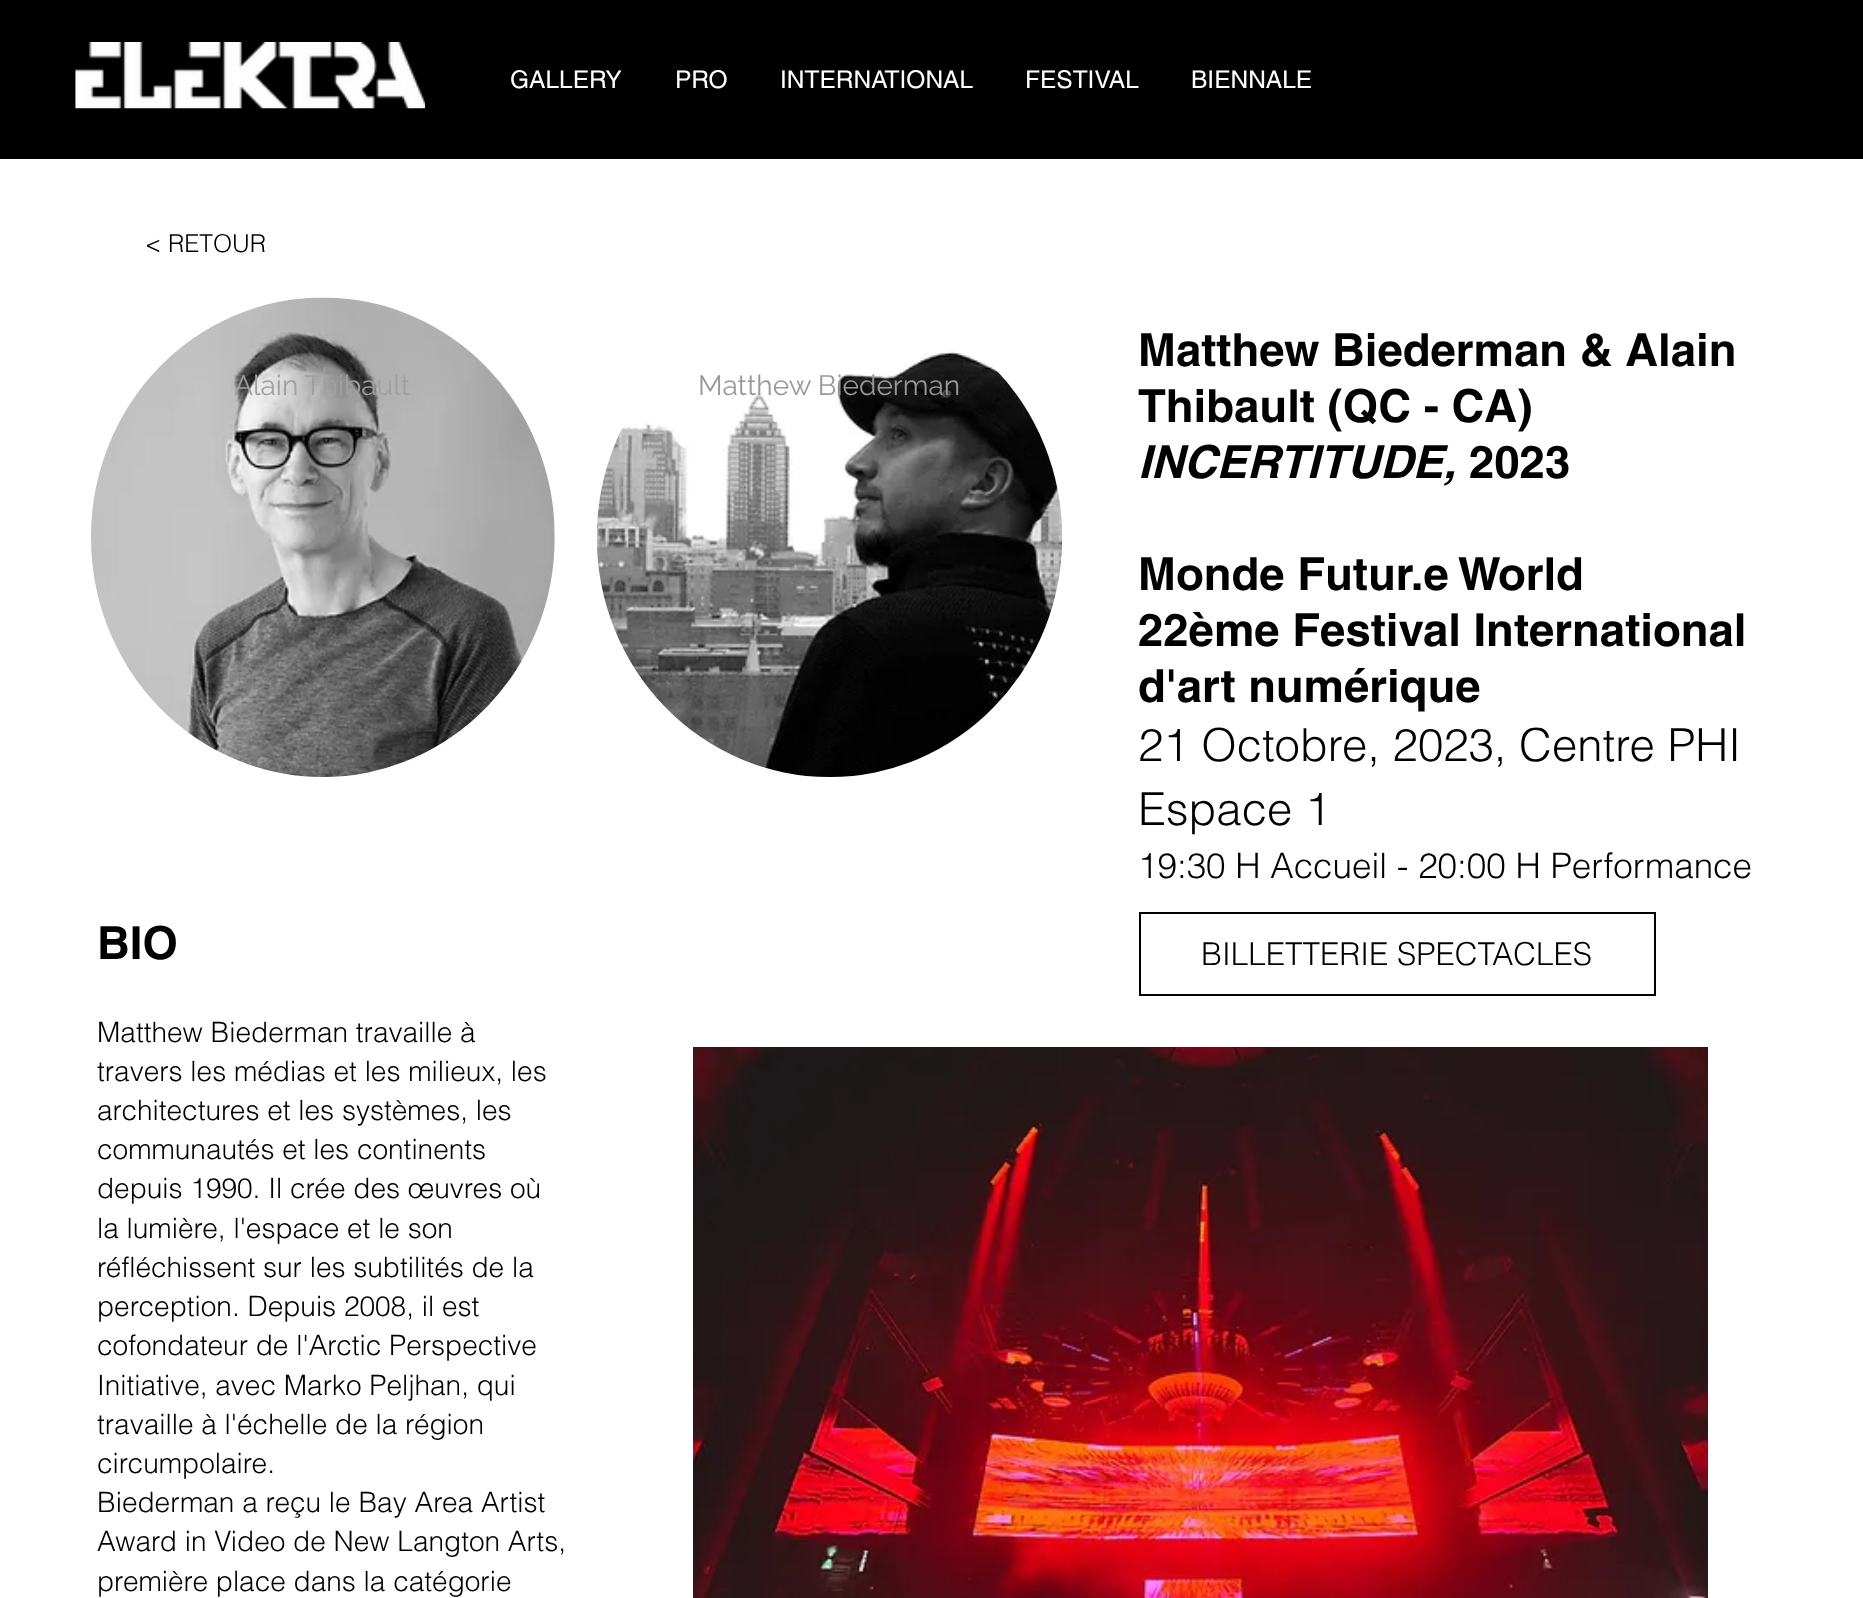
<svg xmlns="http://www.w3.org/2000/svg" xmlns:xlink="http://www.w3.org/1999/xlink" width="1863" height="1598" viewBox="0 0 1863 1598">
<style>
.cls-1{font:24.5px helvetica;fill:#ffffff}
.cls-2{font:300 24.5px helvetica;fill:#000000}
.cls-3{font:28px Raleway;fill:#a0a0a0}
.cls-4{font:28px Raleway;fill:#989898}
.cls-5{font:bold 45.5px helvetica;fill:#000000}
.cls-6{font:italic bold 45.5px helvetica;fill:#000000}
.cls-7{font:300 45.5px helvetica;fill:#000000}
.cls-8{font:300 35px helvetica;fill:#000000}
.cls-9{font:300 28px helvetica;fill:#000000}
.cls-10{font:300 31.5px helvetica;fill:#000000}
</style>
<rect width="100%" height="100%" fill="#ffffff"/>
<rect fill="#000000" x="0" y="0" width="1863" height="159"/>
<image xlink:href="image0.png" x="75" y="42" width="351" height="67"/>
<image xlink:href="image1.png" x="91" y="297" width="464" height="480"/>
<image xlink:href="image2.png" x="596" y="351" width="467" height="426"/>
<rect fill="none" stroke="#000000" stroke-width="2" x="1140" y="913" width="515" height="82"/>
<image xlink:href="image3.png" x="693" y="1047" width="1015" height="551"/>
<text class="cls-1" x="510" y="88">GALLERY</text>
<text class="cls-1" x="675" y="88">PRO</text>
<text class="cls-1" x="780" y="88">INTERNATIONAL</text>
<text class="cls-1" x="1025" y="88">FESTIVAL</text>
<text class="cls-1" x="1191" y="88">BIENNALE</text>
<text class="cls-2" x="145" y="252">&lt; RETOUR</text>
<text class="cls-3" x="234" y="395">Alain Thibault</text>
<text class="cls-4" x="698" y="395">Matthew Biederman</text>
<text class="cls-5"><tspan x="1138" y="366">Matthew Biederman &amp; Alain</tspan><tspan x="1138" y="422">Thibault (QC - CA)</tspan></text>
<text class="cls-6" x="1138" y="478">INCERTITUDE,</text>
<text class="cls-5" x="1469" y="478">2023</text>
<text class="cls-5"><tspan x="1138" y="590">Monde Futur.e World</tspan><tspan x="1138" y="646">22ème Festival International</tspan><tspan x="1138" y="702">d'art numérique</tspan></text>
<text class="cls-7"><tspan x="1138" y="761">21 Octobre, 2023, Centre PHI</tspan><tspan x="1138" y="825">Espace 1</tspan></text>
<text class="cls-8" x="1138" y="878">19:30 H Accueil - 20:00 H Performance</text>
<text class="cls-5" x="97" y="959">BIO</text>
<text class="cls-9"><tspan x="97" y="1042">Matthew Biederman travaille à</tspan><tspan x="97" y="1081">travers les médias et les milieux, les</tspan><tspan x="97" y="1120">architectures et les systèmes, les</tspan><tspan x="97" y="1159">communautés et les continents</tspan><tspan x="97" y="1198">depuis 1990. Il crée des œuvres où</tspan><tspan x="97" y="1238">la lumière, l'espace et le son</tspan><tspan x="97" y="1277">réfléchissent sur les subtilités de la</tspan><tspan x="97" y="1316">perception. Depuis 2008, il est</tspan><tspan x="97" y="1355">cofondateur de l'Arctic Perspective</tspan><tspan x="97" y="1395">Initiative, avec Marko Peljhan, qui</tspan><tspan x="97" y="1434">travaille à l'échelle de la région</tspan><tspan x="97" y="1473">circumpolaire.</tspan><tspan x="97" y="1512">Biederman a reçu le Bay Area Artist</tspan><tspan x="97" y="1551">Award in Video de New Langton Arts,</tspan><tspan x="97" y="1591">première place dans la catégorie</tspan></text>
<text class="cls-10" x="1201" y="965">BILLETTERIE SPECTACLES</text>
</svg>
